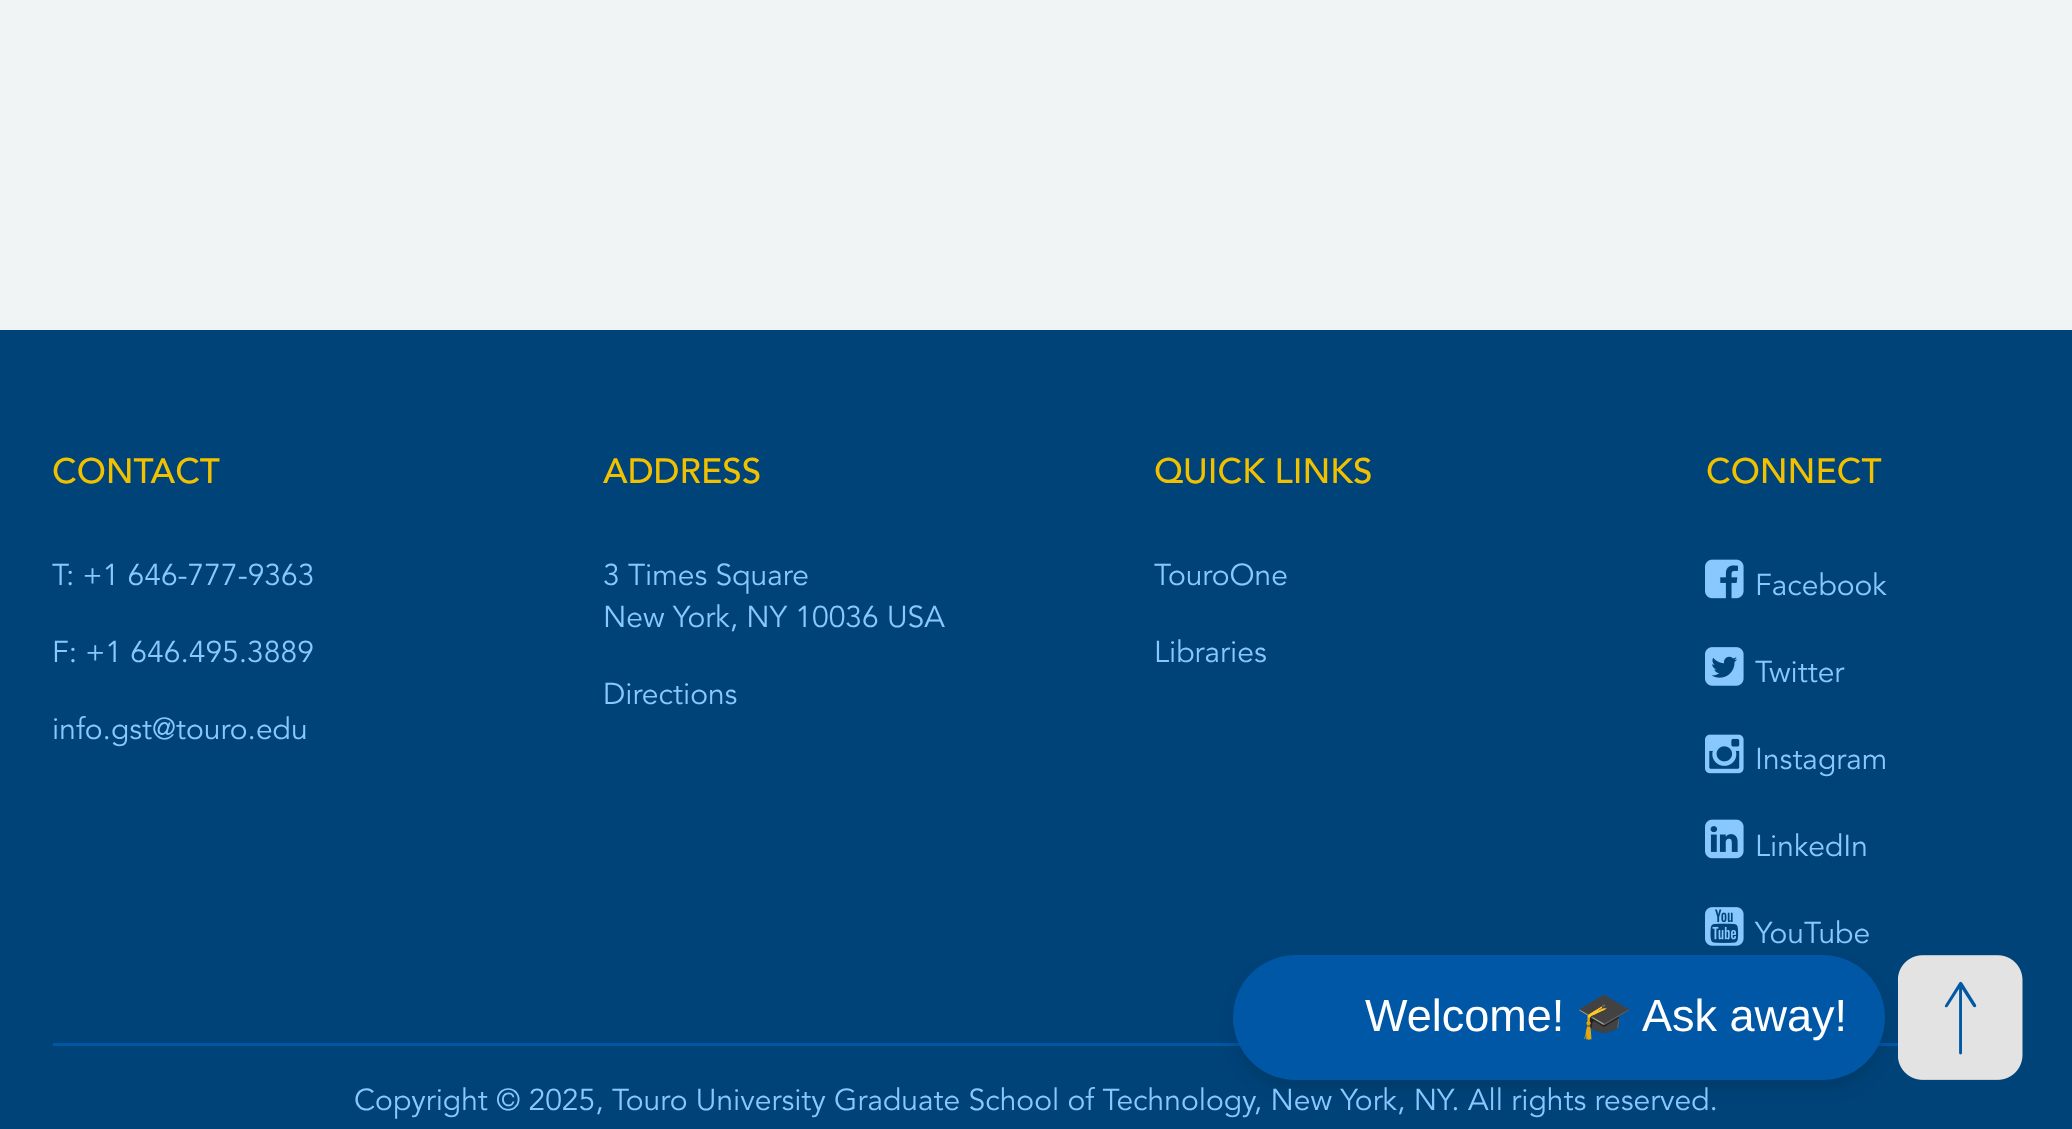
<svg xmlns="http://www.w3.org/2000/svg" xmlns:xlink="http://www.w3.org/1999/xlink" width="2072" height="1129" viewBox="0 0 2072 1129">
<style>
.cls-1{font:500 35px Avenir;fill:#f1c100}
.cls-2{font:30px Avenir;fill:#89c8ff}
.cls-3{font:45px Liberation Sans;fill:#ffffff}
.cls-4{font:45px Noto Color Emoji;fill:#ffffff}
</style>
<rect width="100%" height="100%" fill="#f0f4f5"/>
<rect fill="#004379" x="0" y="330" width="2072" height="799"/>
<image xlink:href="image0.png" x="1705" y="559" width="39" height="40"/>
<image xlink:href="image1.png" x="1705" y="647" width="39" height="39"/>
<image xlink:href="image2.png" x="1705" y="734" width="39" height="40"/>
<image xlink:href="image3.png" x="1705" y="819" width="39" height="40"/>
<image xlink:href="image4.png" x="1705" y="907" width="39" height="39"/>
<rect fill="#0057a5" x="53" y="1043" width="1845" height="3"/>
<rect fill="#000000" fill-opacity="0.1" filter="blur(7.5px)" x="1233" y="965" width="652" height="125" rx="62.5"/>
<rect fill="#0057a6" x="1233" y="955" width="652" height="125" rx="62.5"/>
<image xlink:href="image5.png" x="1898" y="955" width="125" height="125"/>
<text class="cls-1" x="52" y="483">CONTACT</text>
<text class="cls-2" x="52" y="585">T: +1 646-777-9363</text>
<text class="cls-2" x="52" y="662">F: +1 646.495.3889</text>
<text class="cls-2" x="52" y="739">info.gst@touro.edu</text>
<text class="cls-1" x="603" y="483">ADDRESS</text>
<text class="cls-2"><tspan x="603" y="585">3 Times Square</tspan><tspan x="603" y="627">New York, NY 10036 USA</tspan></text>
<text class="cls-2" x="603" y="704">Directions</text>
<text class="cls-1" x="1154" y="483">QUICK LINKS</text>
<text class="cls-2" x="1154" y="585">TouroOne</text>
<text class="cls-2" x="1154" y="662">Libraries</text>
<text class="cls-1" x="1706" y="483">CONNECT</text>
<text class="cls-2" x="1755" y="595">Facebook</text>
<text class="cls-2" x="1755" y="682">Twitter</text>
<text class="cls-2" x="1755" y="769">Instagram</text>
<text class="cls-2" x="1755" y="856">LinkedIn</text>
<text class="cls-2" x="1755" y="943">YouTube</text>
<text class="cls-2" x="354" y="1110">Copyright © 2025, Touro University Graduate School of Technology, New York, NY. All rights reserved.</text>
<text class="cls-3" x="1365" y="1031">Welcome!</text>
<text class="cls-4" x="1576" y="1031">🎓</text>
<text class="cls-3" x="1642" y="1031">Ask away!</text>
</svg>
